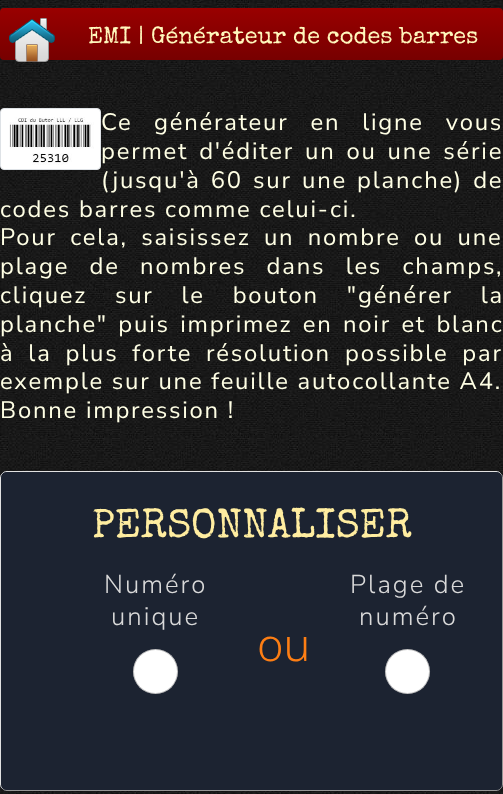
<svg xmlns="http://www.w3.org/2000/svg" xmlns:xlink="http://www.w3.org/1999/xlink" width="503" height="794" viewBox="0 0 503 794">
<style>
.cls-1{font:23.5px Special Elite;fill:#fff7bc}
.cls-2{font:23.8px Nunito Sans;letter-spacing:1.8px;fill:#ffffe5}
.cls-3{font:41px Special Elite;fill:#ffeda0}
.cls-4{font:300 25.75px Nunito Sans;letter-spacing:2px;fill:#d9d9d9}
.cls-5{font:300 45px Noto Sans;fill:#fd7e14}
</style>
<defs>
<linearGradient id="g1" gradientUnits="userSpaceOnUse" x1="252" y1="8" x2="252" y2="60"><stop offset="0" stop-color="#990000"/><stop offset="1" stop-color="#770000"/></linearGradient>
</defs>
<rect width="100%" height="100%" fill="#ffffff"/>
<image xlink:href="image0.png" x="0" y="0" width="503" height="794"/>
<rect fill="url(#g1)" x="0" y="8" width="503" height="52" rx="4"/>
<image xlink:href="image1.png" x="9" y="18" width="46" height="44"/>
<rect fill="#ffffff" stroke="#dee2e6" x="0.5" y="108.5" width="100" height="61" rx="3.5"/>
<image xlink:href="image2.png" x="9" y="117" width="85" height="48"/>
<rect fill="#1c2331" x="0" y="471" width="503" height="320" rx="7"/>
<path fill="none" stroke="#969696" d="M500.5 473.5C502 474.5 502.5 476 502.5 478V784C502.5 786 502 787.5 500.5 788.5C499.5 790 498 790.5 496 790.5H7C5 790.5 3.5 790 2.5 788.5"/>
<path fill="none" stroke="#e1e1e1" d="M2.5 788.5C1 787.5 .5 786 .5 784V478C.5 476 1 474.5 2.5 473.5C3.5 472 5 471.5 7 471.5H496C498 471.5 499.5 472 500.5 473.5"/>
<circle fill="#ffffff" cx="155.5" cy="671.5" r="22.5"/>
<circle fill="none" stroke="#000000" stroke-opacity="0.25" cx="155.5" cy="671.5" r="22"/>
<circle fill="#ffffff" cx="407.5" cy="671.5" r="22.5"/>
<circle fill="none" stroke="#000000" stroke-opacity="0.25" cx="407.5" cy="671.5" r="22"/>
<text class="cls-1" x="88" y="43">EMI | Générateur de codes barres</text>
<text class="cls-2" x="101" y="130">Ce</text>
<text class="cls-2" x="154" y="130" word-spacing="14">générateur en ligne vous</text>
<text class="cls-2"><tspan x="101" y="159" word-spacing="3">permet d'éditer un ou une série</tspan><tspan x="101" y="188" word-spacing="2.25">(jusqu'à 60 sur une planche) de</tspan></text>
<text class="cls-2"><tspan x="0" y="217">codes barres comme celui-ci.</tspan><tspan x="0" y="245" word-spacing="5.5">Pour cela, saisissez un nombre ou une</tspan><tspan x="0" y="274" word-spacing="12.5">plage de nombres dans les champs,</tspan><tspan x="0" y="303" word-spacing="20">cliquez sur le bouton "générer la</tspan><tspan x="0" y="332" word-spacing="2.5">planche" puis imprimez en noir et blanc</tspan><tspan x="0" y="361" word-spacing="6">à la plus forte résolution</tspan></text>
<text class="cls-2" x="345" y="361" word-spacing="6">possible par</text>
<text class="cls-2"><tspan x="0" y="389">exemple sur une feuille autocollante A4.</tspan><tspan x="0" y="418">Bonne impression !</tspan></text>
<text class="cls-3" x="92" y="537">PERSONNALISER</text>
<text class="cls-4" x="104" y="593">Numéro</text>
<text class="cls-4" x="111" y="625">unique</text>
<text class="cls-4" x="350" y="593">Plage de</text>
<text class="cls-4" x="359" y="625">numéro</text>
<text class="cls-5" x="257" y="661">ou</text>
</svg>
